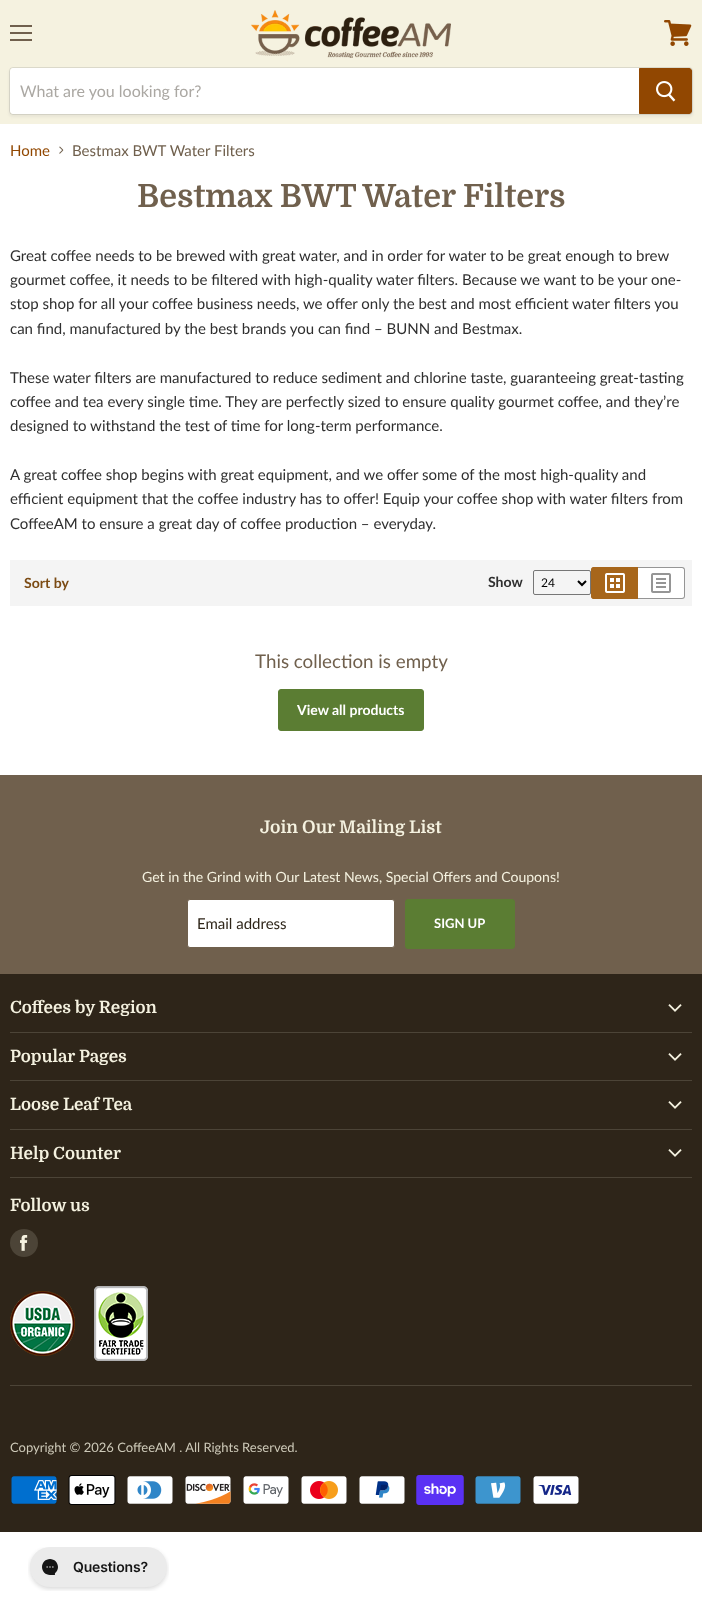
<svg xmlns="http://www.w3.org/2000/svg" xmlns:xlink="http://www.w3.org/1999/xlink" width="702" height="1614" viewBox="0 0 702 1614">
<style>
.cls-1{font:16px Lato;fill:#aba8a3}
.cls-2{font:15px Lato;fill:#914701}
.cls-3{font:15px Lato;fill:#70604d}
.cls-4{font:bold 31.9px Domine;fill:#70604d}
.cls-5{font:15px Lato;fill:#2f2f2f}
.cls-6{font:bold 14.05px Lato;fill:#7b4b14}
.cls-7{font:bold 14.05px Lato;fill:#2f2f2f}
.cls-8{font:12px Lato;fill:#000000}
.cls-9{font:18.75px Lato;fill:#70604d}
.cls-10{font:bold 14px Lato;fill:#ffffff}
.cls-11{font:bold 17.5px Domine;fill:#f5f2e0}
.cls-12{font:14.05px Lato;fill:#f5f2e0}
.cls-13{font:15px Lato;fill:#2e2519}
.cls-14{font:bold 13px Lato;fill:#ffffff}
.cls-15{font:bold 16.9px Domine;fill:#f5f2e0}
.cls-16{font:13px Lato;fill:#cdc9b8}
</style>
<rect width="100%" height="100%" fill="#ffffff"/>
<rect fill="#f5f2e0" x="0" y="0" width="702" height="124"/>
<rect fill="#70604d" x="10" y="25" width="22" height="2"/>
<rect fill="#70604d" x="10" y="32" width="22" height="2"/>
<rect fill="#70604d" x="10" y="39" width="22" height="2"/>
<image xlink:href="image0.png" x="664" y="20" width="28" height="26"/>
<image xlink:href="image1.png" x="251" y="10" width="200" height="48"/>
<rect fill="#7f7f7f" fill-opacity="0.11" filter="blur(1.5px)" x="9" y="69" width="684" height="48" rx="4"/>
<rect fill="none" stroke="#7f7f7f" stroke-opacity="0.2" x="9.5" y="67.5" width="683" height="47" rx="3.5"/>
<path fill="#ffffff" d="M13 68H639V114H13C11.5 114 10 112.5 10 111V71C10 69.5 11.5 68 13 68Z"/>
<path fill="#914701" stroke="#914701" d="M639.5 68.5H689C690.5 68.5 691.5 69.5 691.5 71V111C691.5 112.5 690.5 113.5 689 113.5H639.5Z"/>
<image xlink:href="image2.png" x="656" y="81" width="20" height="21"/>
<image xlink:href="image3.png" x="59" y="146" width="5" height="8"/>
<rect fill="#f4f4f4" x="10" y="560" width="682" height="46"/>
<rect fill="none" stroke="#767676" x="533.5" y="570.5" width="57" height="24" rx="1.5"/>
<path fill="none" stroke="#000000" stroke-width="2" d="M578 581L582 585L586 581"/>
<path fill="#a7661b" d="M594 567H638V599H594C592.5 599 591 597.5 591 596V570C591 568.5 592.5 567 594 567Z"/>
<path fill="#a7661b" fill-rule="evenodd" d="M594 567H638V599H594C592 599 591 598 591 596V570C591 568 592 567 594 567ZM594 568H638V598H594C593 598 592 597 592 596V570C592 569 593 568 594 568Z"/>
<image xlink:href="image4.png" x="605" y="573" width="20" height="20"/>
<path fill="#ffffff" d="M638 567H682C683.5 567 685 568.5 685 570V596C685 597.5 683.5 599 682 599H638Z"/>
<path fill="#959595" fill-rule="evenodd" d="M638 567H682C684 567 685 568 685 570V596C685 598 684 599 682 599H638ZM638 568H682C683 568 684 569 684 570V596C684 597 683 598 682 598H638Z"/>
<image xlink:href="image5.png" x="651" y="573" width="20" height="20"/>
<rect fill="#5b7d33" stroke="#5b7d33" x="278.5" y="689.5" width="145" height="41" rx="2.5"/>
<rect fill="#70604d" x="0" y="775" width="702" height="199"/>
<rect fill="#ffffff" stroke="#70604d" x="187.5" y="899.5" width="207" height="48" rx="2.5"/>
<rect fill="#5b7d33" stroke="#5b7d33" x="405.5" y="899.5" width="109" height="49" rx="2.5"/>
<rect fill="#2e2519" x="0" y="974" width="702" height="558"/>
<rect fill="#4c4437" x="10" y="1032" width="682" height="1"/>
<image xlink:href="image6.png" x="668" y="1004" width="14" height="8"/>
<rect fill="#4c4437" x="10" y="1080" width="682" height="1"/>
<image xlink:href="image6.png" x="668" y="1053" width="14" height="8"/>
<rect fill="#4c4437" x="10" y="1129" width="682" height="1"/>
<image xlink:href="image6.png" x="668" y="1101" width="14" height="8"/>
<rect fill="#4c4437" x="10" y="1177" width="682" height="1"/>
<image xlink:href="image6.png" x="668" y="1149" width="14" height="8"/>
<rect fill="#4c4437" x="10" y="1385" width="682" height="1"/>
<circle fill="#4c4437" cx="24" cy="1243" r="14"/>
<image xlink:href="image7.png" x="20" y="1235" width="8" height="16"/>
<image xlink:href="image8.png" x="10" y="1291" width="65" height="65"/>
<image xlink:href="image9.png" x="94" y="1286" width="54" height="75"/>
<image xlink:href="image10.png" x="11" y="1476" width="46" height="28"/>
<image xlink:href="image11.png" x="68" y="1475" width="48" height="30"/>
<image xlink:href="image12.png" x="127" y="1476" width="46" height="28"/>
<image xlink:href="image13.png" x="185" y="1476" width="46" height="28"/>
<image xlink:href="image14.png" x="243" y="1476" width="46" height="28"/>
<image xlink:href="image15.png" x="301" y="1476" width="46" height="28"/>
<image xlink:href="image16.png" x="359" y="1476" width="46" height="28"/>
<image xlink:href="image17.png" x="416" y="1475" width="48" height="30"/>
<image xlink:href="image18.png" x="475" y="1476" width="46" height="28"/>
<image xlink:href="image19.png" x="533" y="1476" width="46" height="28"/>
<image xlink:href="image20.png" x="28" y="1547" width="141" height="44"/>
<text class="cls-1" x="20" y="97">What are you looking for?</text>
<text class="cls-2" x="10" y="156">Home</text>
<text class="cls-3" x="72" y="156">Bestmax BWT Water Filters</text>
<text class="cls-4" x="137" y="207">Bestmax BWT Water Filters</text>
<text class="cls-5"><tspan x="10" y="261">Great coffee needs to be brewed with great water, and in order for water to be great enough to brew</tspan><tspan x="10" y="285">gourmet coffee, it needs to be filtered with high-quality water filters. Because we want to be your one-</tspan><tspan x="10" y="309">stop shop for all your coffee business needs, we offer only the best and most efficient water filters you</tspan><tspan x="10" y="334">can find, manufactured by the best brands you can find – BUNN and Bestmax.</tspan></text>
<text class="cls-5"><tspan x="10" y="383">These water filters are manufactured to reduce sediment and chlorine taste, guaranteeing great-tasting</tspan><tspan x="10" y="407">coffee and tea every single time. They are perfectly sized to ensure quality gourmet coffee, and they’re</tspan><tspan x="10" y="431">designed to withstand the test of time for long-term performance.</tspan></text>
<text class="cls-5"><tspan x="10" y="480">A great coffee shop begins with great equipment, and we offer some of the most high-quality and</tspan><tspan x="10" y="504">efficient equipment that the coffee industry has to offer! Equip your coffee shop with water filters from</tspan><tspan x="10" y="529">CoffeeAM to ensure a great day of coffee production – everyday.</tspan></text>
<text class="cls-6" x="24" y="588">Sort by</text>
<text class="cls-7" x="488" y="587">Show</text>
<text class="cls-8" x="541" y="587">24</text>
<text class="cls-9" x="255" y="668">This collection is empty</text>
<text class="cls-10" x="297" y="715">View all products</text>
<text class="cls-11" x="260" y="833">Join Our Mailing List</text>
<text class="cls-12" x="142" y="882">Get in the Grind with Our Latest News, Special Offers and Coupons!</text>
<text class="cls-13" x="197" y="929">Email address</text>
<text class="cls-14" x="434" y="928">SIGN UP</text>
<text class="cls-15" x="10" y="1013">Coffees by Region</text>
<text class="cls-15" x="10" y="1062">Popular Pages</text>
<text class="cls-15" x="10" y="1110">Loose Leaf Tea</text>
<text class="cls-15" x="10" y="1159">Help Counter</text>
<text class="cls-15" x="10" y="1211">Follow us</text>
<text class="cls-16" x="10" y="1452">Copyright © 2026 CoffeeAM . All Rights Reserved.</text>
</svg>
